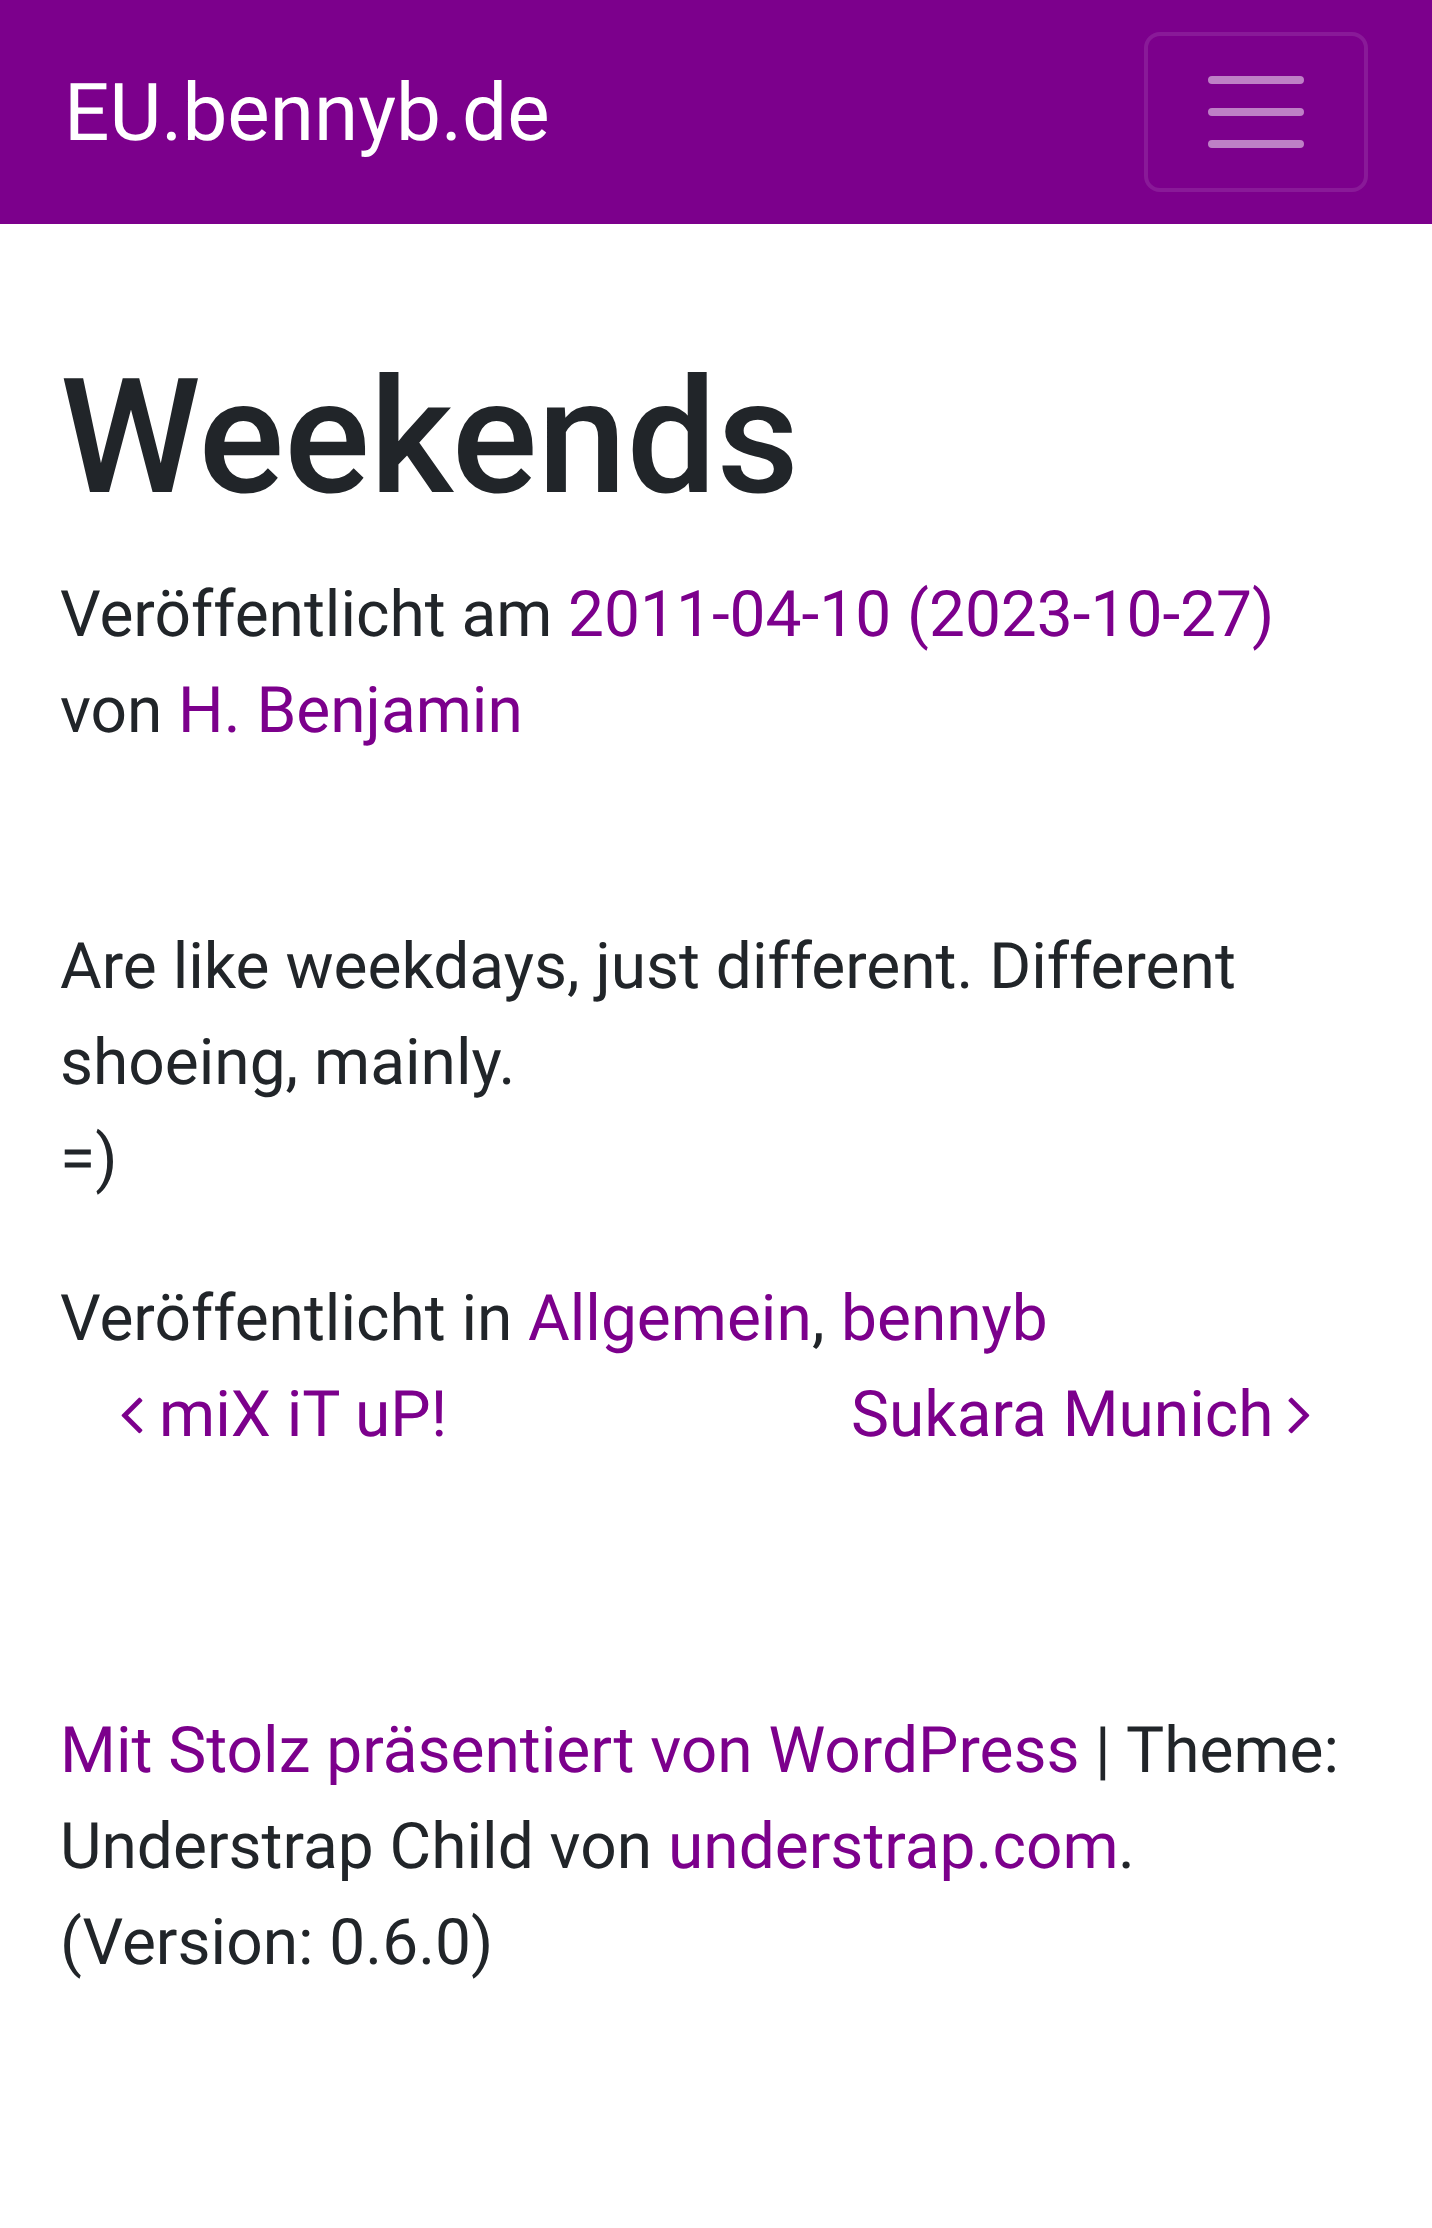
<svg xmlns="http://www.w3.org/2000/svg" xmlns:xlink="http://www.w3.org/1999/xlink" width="1432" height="2228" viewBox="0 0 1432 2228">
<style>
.cls-1{font:80px Roboto;fill:#ffffff}
.cls-2{font:500 160px Roboto;fill:#212529}
.cls-3{font:64px Roboto;fill:#212529}
.cls-4{font:64px Roboto;fill:#7c008c}
</style>
<rect width="100%" height="100%" fill="#ffffff"/>
<rect fill="#7c008c" x="0" y="0" width="1432" height="224"/>
<rect fill="none" stroke="#891a98" stroke-width="4" x="1146" y="34" width="220" height="156" rx="14"/>
<path fill="none" stroke="#be80c6" stroke-width="8" stroke-linecap="round" d="M1212 80H1300M1212 112H1300M1212 144H1300"/>
<image xlink:href="image0.png" x="121" y="1397" width="22" height="37"/>
<image xlink:href="image1.png" x="1288" y="1397" width="22" height="37"/>
<text class="cls-1" x="64" y="140">EU.bennyb.de</text>
<text class="cls-2" x="60" y="492">Weekends</text>
<text class="cls-3" x="60" y="636">Veröffentlicht am</text>
<text class="cls-4" x="568" y="636">2011-04-10 (2023-10-27)</text>
<text class="cls-3" x="60" y="732">von</text>
<text class="cls-4" x="178" y="732">H. Benjamin</text>
<text class="cls-3"><tspan x="60" y="988">Are like weekdays, just different. Different</tspan><tspan x="60" y="1084">shoeing, mainly.</tspan><tspan x="60" y="1180">=)</tspan></text>
<text class="cls-3" x="60" y="1340">Veröffentlicht in</text>
<text class="cls-4" x="528" y="1340">Allgemein</text>
<text class="cls-3" x="812" y="1340">,</text>
<text class="cls-4" x="841" y="1340">bennyb</text>
<text class="cls-4" x="159" y="1436">miX iT uP!</text>
<text class="cls-4" x="851" y="1436">Sukara Munich</text>
<text class="cls-4" x="60" y="1772">Mit Stolz präsentiert von WordPress</text>
<text class="cls-3" x="1095" y="1772">|</text>
<text class="cls-3" x="1126" y="1772">Theme:</text>
<text class="cls-3" x="60" y="1868">Understrap Child von</text>
<text class="cls-4" x="668" y="1868">understrap.com</text>
<text class="cls-3" x="1118" y="1868">.</text>
<text class="cls-3" x="60" y="1964">(Version: 0.6.0)</text>
</svg>
